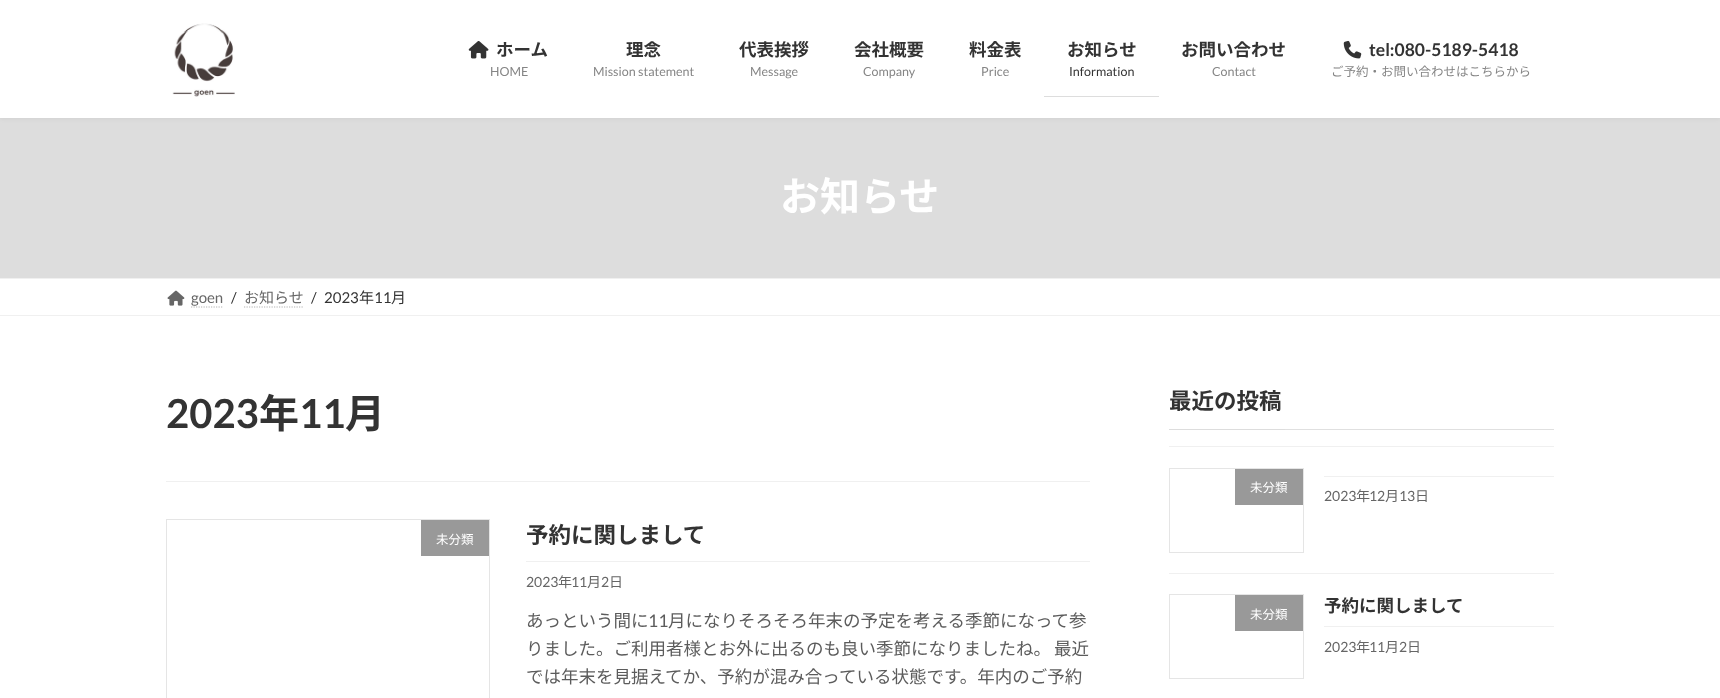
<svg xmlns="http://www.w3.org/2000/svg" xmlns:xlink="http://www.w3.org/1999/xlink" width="1720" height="698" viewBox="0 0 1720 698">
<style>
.cls-1{font:bold 17.5px Noto Sans JP;fill:#333333}
.cls-2{font:12.5px Lato;fill:#858585}
.cls-3{font:12.5px Lato;fill:#333333}
.cls-4{font:bold 17.5px Lato;fill:#333333}
.cls-5{font:12.5px Noto Sans JP;fill:#858585}
.cls-6{font:bold 40px Noto Sans JP;fill:#ffffff}
.cls-7{font:15px Lato;fill:#666666}
.cls-8{font:15px Lato;fill:#333333}
.cls-9{font:15px Noto Sans JP;fill:#666666}
.cls-10{font:15px Noto Sans JP;fill:#333333}
.cls-11{font:bold 40px Lato;fill:#333333}
.cls-12{font:bold 40px Noto Sans JP;fill:#333333}
.cls-13{font:12.5px Noto Sans JP;fill:#ffffff}
.cls-14{font:bold 22.5px Noto Sans JP;fill:#333333}
.cls-15{font:14px Lato;fill:#666666}
.cls-16{font:14px Noto Sans JP;fill:#666666}
.cls-17{font:17.5px Noto Sans JP;fill:#5c5c5c}
.cls-18{font:17.5px Lato;fill:#5c5c5c}
</style>
<rect width="100%" height="100%" fill="#ffffff"/>
<rect fill="#dddddd" x="0" y="118" width="1720" height="160"/>
<rect fill="#000000" fill-opacity="0.05" filter="blur(2px)" x="0" y="1" width="1720" height="118"/>
<rect fill="#ffffff" x="0" y="0" width="1720" height="118"/>
<image xlink:href="image0.png" x="172" y="23" width="63" height="74"/>
<image xlink:href="image1.png" x="468" y="41" width="21" height="18"/>
<rect fill="#dddddd" x="1044" y="96" width="115" height="1"/>
<image xlink:href="image2.png" x="1343" y="40" width="19" height="19"/>
<rect fill="#f0f0f0" x="0" y="278" width="1720" height="1"/>
<rect fill="#f0f0f0" x="0" y="315" width="1720" height="1"/>
<image xlink:href="image3.png" x="167" y="290" width="18" height="16"/>
<path fill="none" stroke="#b3b3b3" stroke-width="1.2" stroke-dasharray="1.25 1.25" d="M191 307H223"/>
<path fill="none" stroke="#b3b3b3" stroke-width="1.2" stroke-dasharray="1.25 1.25" d="M244 307H303.5"/>
<rect fill="#f0f0f0" x="166" y="481" width="924" height="1"/>
<rect fill="none" stroke="#e5e5e5" x="166.5" y="519.5" width="323" height="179"/>
<rect fill="#999999" x="421" y="520" width="68" height="36"/>
<rect fill="#f0f0f0" x="526" y="561" width="564" height="1"/>
<rect fill="#e0e0e0" x="1285" y="429" width="269" height="1"/>
<rect fill="#dddddd" x="1169" y="429" width="116" height="1"/>
<rect fill="#f0f0f0" x="1169" y="446" width="385" height="1"/>
<rect fill="#f0f0f0" x="1169" y="573" width="385" height="1"/>
<rect fill="none" stroke="#e5e5e5" x="1169.5" y="468.5" width="134" height="84"/>
<rect fill="#999999" x="1235" y="469" width="68" height="36"/>
<rect fill="#f0f0f0" x="1324" y="476" width="230" height="1"/>
<rect fill="none" stroke="#e5e5e5" x="1169.5" y="594.5" width="134" height="84"/>
<rect fill="#999999" x="1235" y="595" width="68" height="36"/>
<rect fill="#f0f0f0" x="1324" y="626" width="230" height="1"/>
<text class="cls-1" x="496" y="56">ホーム</text>
<text class="cls-2" x="490" y="76">HOME</text>
<text class="cls-1" x="626" y="56">理念</text>
<text class="cls-2" x="593" y="76">Mission statement</text>
<text class="cls-1" x="739" y="56">代表挨拶</text>
<text class="cls-2" x="750" y="76">Message</text>
<text class="cls-1" x="854" y="56">会社概要</text>
<text class="cls-2" x="863" y="76">Company</text>
<text class="cls-1" x="969" y="56">料金表</text>
<text class="cls-2" x="981" y="76">Price</text>
<text class="cls-1" x="1067" y="56">お知らせ</text>
<text class="cls-3" x="1069" y="76">Information</text>
<text class="cls-1" x="1181" y="56">お問い合わせ</text>
<text class="cls-2" x="1212" y="76">Contact</text>
<text class="cls-4" x="1369" y="56">tel:080-5189-5418</text>
<text class="cls-5" x="1331" y="76">ご予約・お問い合わせはこちらから</text>
<text class="cls-6" x="780" y="211">お知らせ</text>
<text class="cls-7" x="191" y="303">goen</text>
<text class="cls-8" x="231" y="303">/</text>
<text class="cls-9" x="244" y="303">お知らせ</text>
<text class="cls-8" x="311" y="303">/</text>
<text class="cls-8" x="324" y="303">2023</text>
<text class="cls-10" x="359" y="303">年</text>
<text class="cls-8" x="374" y="303">11</text>
<text class="cls-10" x="391" y="303">月</text>
<text class="cls-11" x="166" y="428">2023</text>
<text class="cls-12" x="259" y="428">年</text>
<text class="cls-11" x="299" y="428">11</text>
<text class="cls-12" x="345" y="428">月</text>
<text class="cls-13" x="436" y="544">未分類</text>
<text class="cls-14" x="526" y="543">予約に関しまして</text>
<text class="cls-15" x="526" y="587">2023</text>
<text class="cls-16" x="558" y="587">年</text>
<text class="cls-15" x="571" y="587">11</text>
<text class="cls-16" x="587" y="587">月</text>
<text class="cls-15" x="601" y="587">2</text>
<text class="cls-16" x="609" y="587">日</text>
<text class="cls-17" x="526" y="627">あっという間に</text>
<text class="cls-18" x="648" y="627">11</text>
<text class="cls-17" x="668" y="627">月になりそろそろ年末の予定を考える季節になって参</text>
<text class="cls-17"><tspan x="526" y="655" word-spacing="-1">りました。ご利用者様とお外に出るのも良い季節になりましたね。 最近</tspan><tspan x="526" y="683">では年末を見据えてか、予約が混み合っている状態です。年内のご予約</tspan></text>
<text class="cls-14" x="1169" y="409">最近の投稿</text>
<text class="cls-13" x="1250" y="492">未分類</text>
<text class="cls-15" x="1324" y="501">2023</text>
<text class="cls-16" x="1356" y="501">年</text>
<text class="cls-15" x="1369" y="501">12</text>
<text class="cls-16" x="1385" y="501">月</text>
<text class="cls-15" x="1399" y="501">13</text>
<text class="cls-16" x="1415" y="501">日</text>
<text class="cls-13" x="1250" y="619">未分類</text>
<text class="cls-1" x="1324" y="612">予約に関しまして</text>
<text class="cls-15" x="1324" y="652">2023</text>
<text class="cls-16" x="1356" y="652">年</text>
<text class="cls-15" x="1369" y="652">11</text>
<text class="cls-16" x="1385" y="652">月</text>
<text class="cls-15" x="1399" y="652">2</text>
<text class="cls-16" x="1407" y="652">日</text>
</svg>
